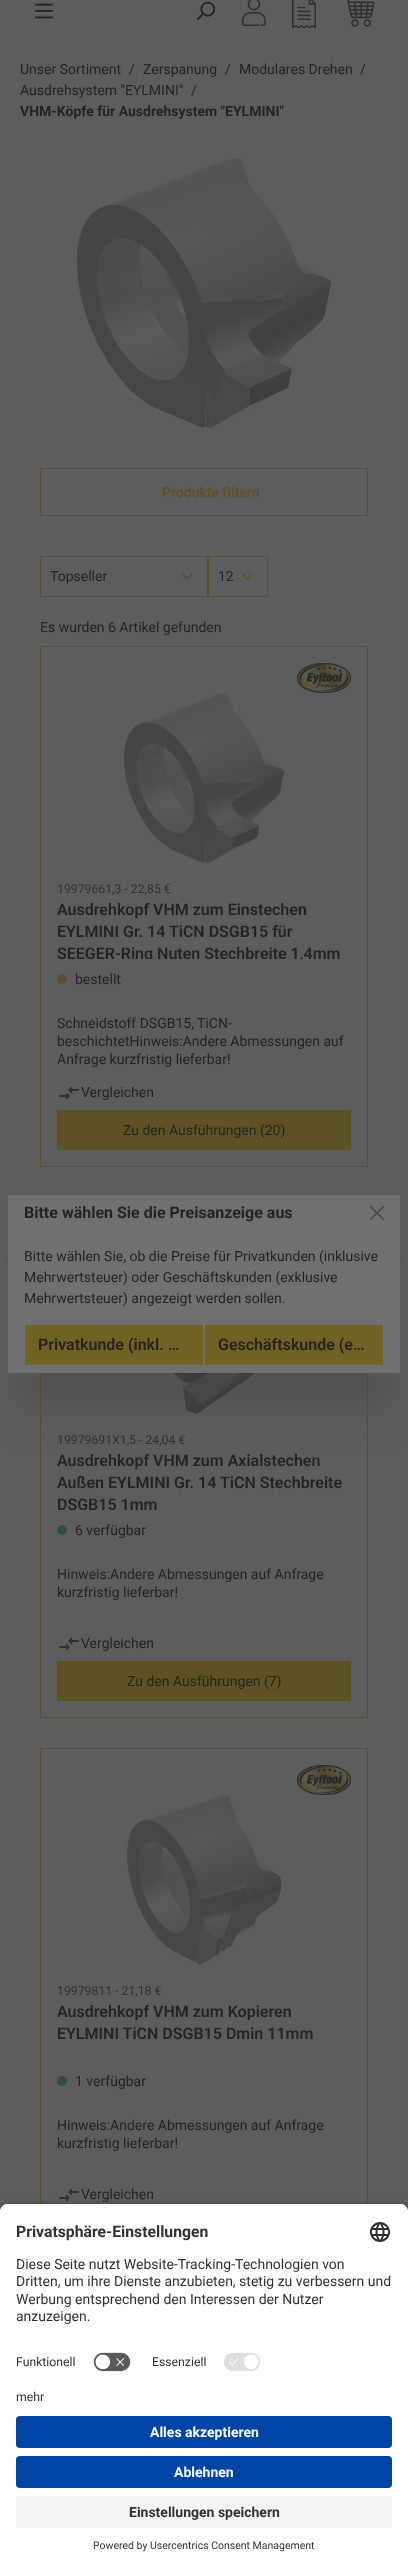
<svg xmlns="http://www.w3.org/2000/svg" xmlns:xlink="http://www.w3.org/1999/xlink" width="408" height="2568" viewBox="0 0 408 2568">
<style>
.cls-1{font:14px Roboto;fill:#242424}
.cls-2{font:bold 14px Roboto;fill:#242424}
.cls-3{font:600 14px Roboto;fill:#5d5224}
.cls-4{font:12.25px Roboto;fill:#323232}
.cls-5{font:600 16px Roboto;fill:#242424}
.cls-6{font:bold 16px Roboto;fill:#242424}
.cls-7{font:bold 15.75px Roboto;fill:#323232}
.cls-8{font:14px Roboto;fill:#323232}
.cls-9{font:bold 14px Roboto;fill:#fafafa}
.cls-10{font:bold 14px Roboto;fill:#323232}
.cls-11{font:10.5px Roboto;fill:#323232}
</style>
<defs>
<clipPath id="clip1"><rect x="57" y="899" width="294" height="60"/></clipPath>
<clipPath id="clip2"><rect x="57" y="1450" width="294" height="60"/></clipPath>
</defs>
<rect width="100%" height="100%" fill="#5d5d5d"/>
<image xlink:href="image0.png" x="34" y="3" width="20" height="16"/>
<image xlink:href="image1.png" x="196" y="1" width="20" height="20"/>
<image xlink:href="image2.png" x="242" y="0" width="24" height="26"/>
<image xlink:href="image3.png" x="292" y="0" width="24" height="28"/>
<image xlink:href="image4.png" x="347" y="0" width="28" height="27"/>
<image xlink:href="image5.png" x="77" y="158" width="254" height="270"/>
<rect fill="none" stroke="#5d5224" x="40.5" y="468.5" width="327" height="47"/>
<image xlink:href="image6.png" x="182" y="574" width="10" height="6"/>
<rect fill="none" stroke="#5d5224" x="40.5" y="556.5" width="167" height="40"/>
<image xlink:href="image6.png" x="242" y="574" width="10" height="6"/>
<rect fill="none" stroke="#5d5224" x="208.5" y="556.5" width="59" height="40"/>
<rect fill="none" stroke="#5d5224" x="40.5" y="646.5" width="327" height="520"/>
<image xlink:href="image7.png" x="297" y="663" width="54" height="30"/>
<image xlink:href="image8.png" x="124" y="693" width="160" height="170"/>
<circle fill="#5d4e39" cx="62" cy="979" r="5"/>
<image xlink:href="image9.png" x="59" y="1086" width="20" height="14"/>
<rect fill="#5d5224" x="57" y="1110" width="294" height="40"/>
<rect fill="none" stroke="#5d5224" x="40.5" y="1197.5" width="327" height="520"/>
<image xlink:href="image10.png" x="124" y="1373" width="160" height="41"/>
<circle fill="#31503a" cx="62" cy="1530" r="5"/>
<image xlink:href="image9.png" x="59" y="1637" width="20" height="14"/>
<rect fill="#5d5224" x="57" y="1661" width="294" height="40"/>
<rect fill="none" stroke="#5d5224" x="40.5" y="1748.5" width="327" height="520"/>
<image xlink:href="image7.png" x="297" y="1765" width="54" height="30"/>
<image xlink:href="image11.png" x="127" y="1795" width="154" height="170"/>
<circle fill="#31503a" cx="62" cy="2081" r="5"/>
<image xlink:href="image9.png" x="59" y="2188" width="20" height="14"/>
<rect fill="#242424" fill-opacity="0.2" filter="blur(21.5px)" x="14" y="1244" width="380" height="166"/>
<rect fill="#707070" x="8" y="1195" width="392" height="178"/>
<image xlink:href="image12.png" x="370" y="1206" width="14" height="14"/>
<rect fill="#706124" x="25" y="1325" width="178" height="40"/>
<rect fill="#706124" x="205" y="1325" width="178" height="40"/>
<rect fill="#000000" fill-opacity="0.8" filter="blur(3.5px)" x="0" y="2207" width="408" height="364" rx="8"/>
<path fill="#ffffff" d="M8 2204H400C404.5 2204 408 2207.5 408 2212V2390H0V2212C0 2207.5 3.5 2204 8 2204Z"/>
<path fill="#ffffff" d="M8 2204H400C404.5 2204 408 2207.5 408 2212V2346H0V2212C0 2207.5 3.5 2204 8 2204Z"/>
<image xlink:href="image13.png" x="370" y="2222" width="20" height="20"/>
<image xlink:href="image14.png" x="93" y="2352" width="38" height="20"/>
<image xlink:href="image15.png" x="223" y="2352" width="38" height="19"/>
<rect fill="#ffffff" x="0" y="2390" width="408" height="178"/>
<rect fill="#0045a5" x="16" y="2416" width="376" height="32" rx="4"/>
<rect fill="#0045a5" x="16" y="2456" width="376" height="32" rx="4"/>
<rect fill="#f5f5f5" x="16" y="2496" width="376" height="32" rx="4"/>
<text class="cls-1" x="20" y="74">Unser Sortiment</text>
<text class="cls-1" x="129" y="74">/</text>
<text class="cls-1" x="143" y="74">Zerspanung</text>
<text class="cls-1" x="225" y="74">/</text>
<text class="cls-1" x="239" y="74">Modulares Drehen</text>
<text class="cls-1" x="360" y="74">/</text>
<text class="cls-1" x="20" y="95">Ausdrehsystem "EYLMINI"</text>
<text class="cls-1" x="191" y="95">/</text>
<text class="cls-2" x="20" y="116">VHM-Köpfe für Ausdrehsystem "EYLMINI"</text>
<text class="cls-3" x="162" y="497">Produkte filtern</text>
<text class="cls-1" x="50" y="581">Topseller</text>
<text class="cls-1" x="218" y="581">12</text>
<text class="cls-1" x="40" y="632">Es wurden 6 Artikel gefunden</text>
<text class="cls-4" x="57" y="893">19979661,3 - 22,85 €</text>
<text class="cls-5"><tspan x="57" y="915">Ausdrehkopf VHM zum Einstechen</tspan><tspan x="57" y="937">EYLMINI Gr. 14 TiCN DSGB15 für</tspan></text>
<g clip-path="url(#clip1)">
<text class="cls-5" x="57" y="959">SEEGER-Ring Nuten Stechbreite 1,4mm</text>
</g>
<text class="cls-1" x="75" y="984">bestellt</text>
<text class="cls-1"><tspan x="57" y="1028">Schneidstoff DSGB15, TiCN-</tspan><tspan x="57" y="1046">beschichtetHinweis:Andere Abmessungen auf</tspan><tspan x="57" y="1064">Anfrage kurzfristig lieferbar!</tspan></text>
<text class="cls-1" x="81" y="1097">Vergleichen</text>
<text class="cls-1" x="123" y="1135">Zu den Ausführungen (20)</text>
<text class="cls-4" x="57" y="1444">19979691X1,5 - 24,04 €</text>
<text class="cls-5"><tspan x="57" y="1466">Ausdrehkopf VHM zum Axialstechen</tspan><tspan x="57" y="1488">Außen EYLMINI Gr. 14 TiCN Stechbreite</tspan></text>
<g clip-path="url(#clip2)">
<text class="cls-5" x="57" y="1510">DSGB15 1mm</text>
</g>
<text class="cls-1" x="75" y="1535">6 verfügbar</text>
<text class="cls-1"><tspan x="57" y="1579">Hinweis:Andere Abmessungen auf Anfrage</tspan><tspan x="57" y="1597">kurzfristig lieferbar!</tspan></text>
<text class="cls-1" x="81" y="1648">Vergleichen</text>
<text class="cls-1" x="127" y="1686">Zu den Ausführungen (7)</text>
<text class="cls-4" x="57" y="1995">19979811 - 21,18 €</text>
<text class="cls-5"><tspan x="57" y="2017">Ausdrehkopf VHM zum Kopieren</tspan><tspan x="57" y="2039">EYLMINI TiCN DSGB15 Dmin 11mm</tspan></text>
<text class="cls-1" x="75" y="2086">1 verfügbar</text>
<text class="cls-1"><tspan x="57" y="2130">Hinweis:Andere Abmessungen auf Anfrage</tspan><tspan x="57" y="2148">kurzfristig lieferbar!</tspan></text>
<text class="cls-1" x="81" y="2199">Vergleichen</text>
<text class="cls-6" x="24" y="1218">Bitte wählen Sie die Preisanzeige aus</text>
<text class="cls-1"><tspan x="24" y="1261">Bitte wählen Sie, ob die Preise für Privatkunden (inklusive</tspan><tspan x="24" y="1282">Mehrwertsteuer) oder Geschäftskunden (exklusive</tspan><tspan x="24" y="1303">Mehrwertsteuer) angezeigt werden sollen.</tspan></text>
<text class="cls-5" x="38" y="1350">Privatkunde (inkl. …</text>
<text class="cls-5" x="218" y="1350">Geschäftskunde (e…</text>
<text class="cls-7" x="16" y="2237">Privatsphäre-Einstellungen</text>
<text class="cls-8"><tspan x="16" y="2269">Diese Seite nutzt Website-Tracking-Technologien von</tspan><tspan x="16" y="2286">Dritten, um ihre Dienste anzubieten, stetig zu verbessern und</tspan><tspan x="16" y="2304">Werbung entsprechend den Interessen der Nutzer</tspan><tspan x="16" y="2321">anzuzeigen.</tspan></text>
<text class="cls-4" x="16" y="2366">Funktionell</text>
<text class="cls-4" x="152" y="2366">Essenziell</text>
<text class="cls-4" x="16" y="2401">mehr</text>
<text class="cls-9" x="150" y="2437">Alles akzeptieren</text>
<text class="cls-9" x="174" y="2477">Ablehnen</text>
<text class="cls-10" x="129" y="2517">Einstellungen speichern</text>
<text class="cls-11" x="93" y="2549">Powered by Usercentrics Consent Management</text>
</svg>
